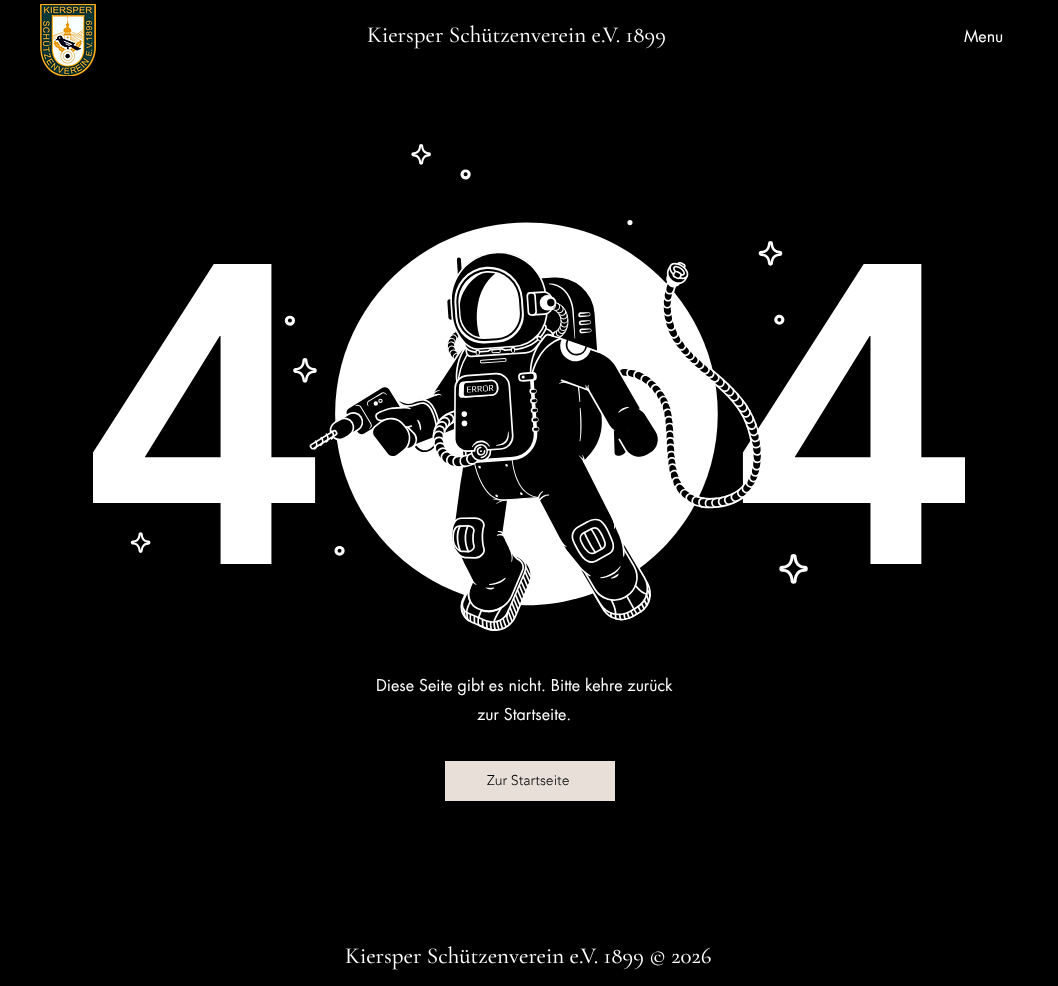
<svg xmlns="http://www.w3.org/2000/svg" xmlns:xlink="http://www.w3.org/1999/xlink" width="1058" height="986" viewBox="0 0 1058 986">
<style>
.cls-1{font:500 23px Cormorant Garamond;fill:#ffffff}
.cls-2{font:16px futura;fill:#ffffff}
.cls-3{font:300 14px 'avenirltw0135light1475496';fill:#000000}
</style>
<rect width="100%" height="100%" fill="#000000"/>
<image xlink:href="image0.png" x="40" y="4" width="56" height="72"/>
<image xlink:href="image1.png" x="93" y="144" width="872" height="487"/>
<rect fill="#e7dfd8" x="445" y="761" width="170" height="40"/>
<text class="cls-1" x="367" y="42">Kiersper Schützenverein e.V. 1899</text>
<text class="cls-2" x="964" y="42">Menu</text>
<text class="cls-2" x="376" y="691">Diese Seite gibt es nicht. Bitte kehre zurück</text>
<text class="cls-2" x="477" y="720">zur Startseite.</text>
<text class="cls-3" x="487" y="785">Zur Startseite</text>
<text class="cls-1" x="345" y="963">Kiersper Schützenverein e.V. 1899 © 2026</text>
</svg>
